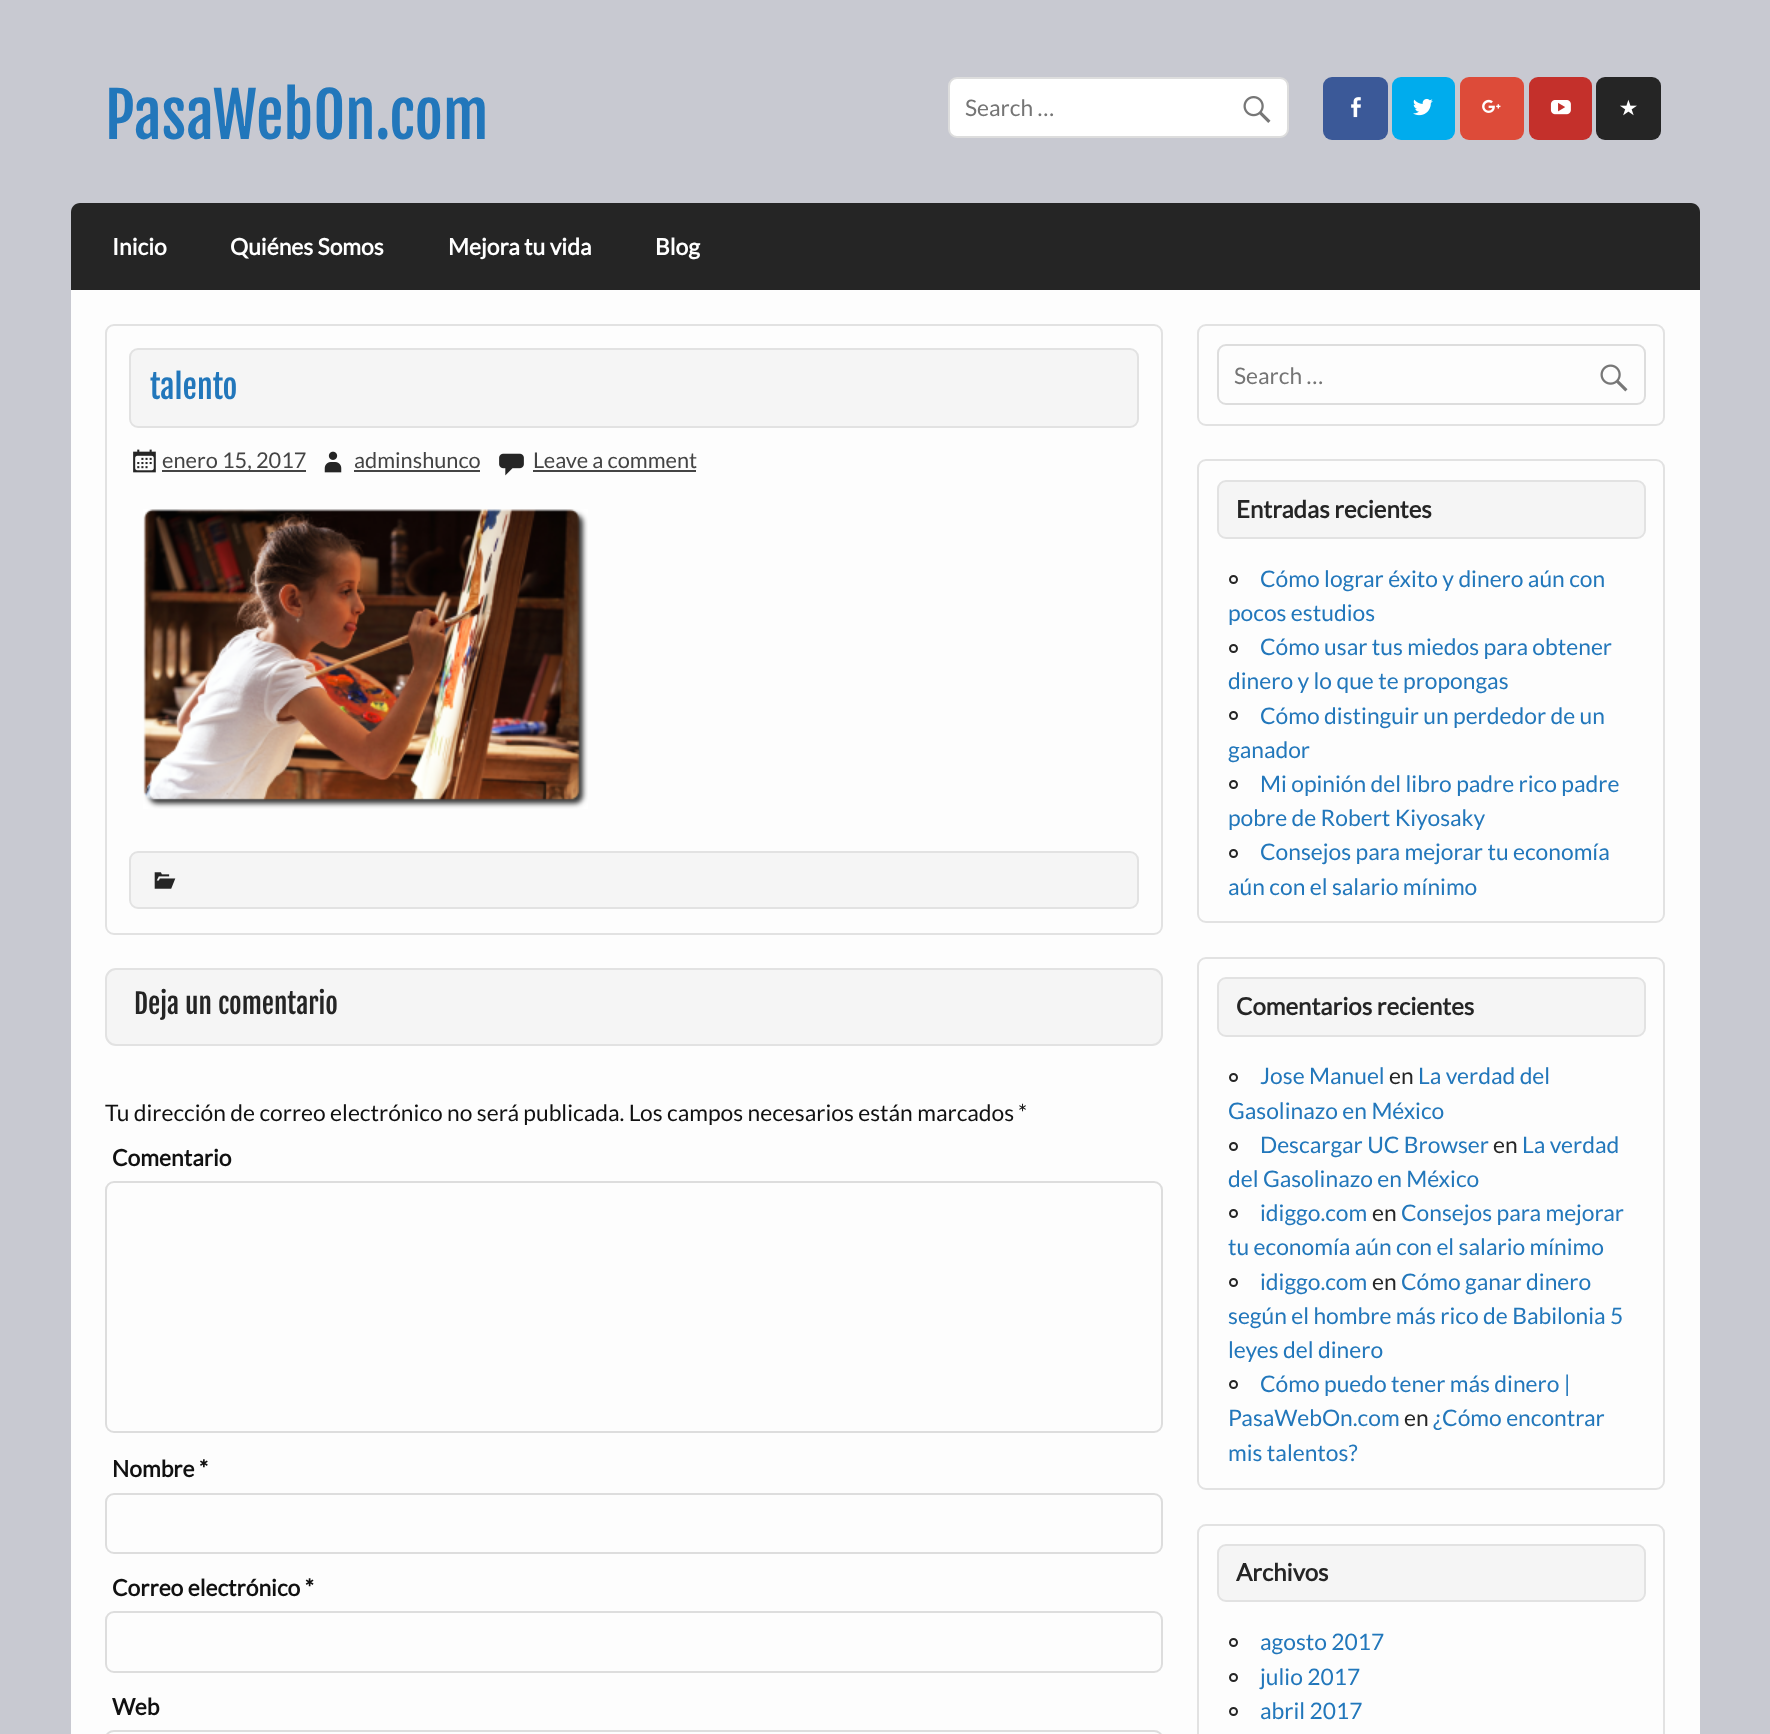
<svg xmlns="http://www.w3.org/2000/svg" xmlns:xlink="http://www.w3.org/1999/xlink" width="1770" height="1734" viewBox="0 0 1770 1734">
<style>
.cls-1{font:61.5px Fjalla One;fill:#2277bb}
.cls-2{font:22.8px Lato;fill:#757575}
.cls-3{font:bold 22.8px Lato;fill:#ffffff}
.cls-4{font:32px Fjalla One;fill:#2277bb}
.cls-5{font:21.75px Lato;fill:#444444}
.cls-6{font:27.25px Fjalla One;fill:#252525}
.cls-7{font:22.8px Lato;fill:#111111}
.cls-8{font:bold 22.8px Lato;fill:#111111}
.cls-9{font:bold 24px Lato;fill:#252525}
.cls-10{font:22.8px Lato;fill:#2277bb}
.cls-11{font:22.8px Lato;fill:#252525}
</style>
<rect width="100%" height="100%" fill="#c8c9d1"/>
<rect fill="#ffffff" stroke="#dddddd" stroke-width="2" x="949" y="78" width="339" height="59" rx="8"/>
<image xlink:href="image0.png" x="1243" y="96" width="28" height="27"/>
<rect fill="#3b5998" x="1323" y="77" width="65" height="63" rx="9"/>
<image xlink:href="image1.png" x="1351" y="97" width="10" height="21"/>
<rect fill="#00aced" x="1392" y="77" width="63" height="63" rx="9"/>
<image xlink:href="image2.png" x="1413" y="98" width="20" height="18"/>
<rect fill="#dd4b39" x="1460" y="77" width="64" height="63" rx="9"/>
<image xlink:href="image3.png" x="1482" y="99" width="19" height="14"/>
<rect fill="#c4302b" x="1529" y="77" width="63" height="63" rx="9"/>
<image xlink:href="image4.png" x="1550" y="100" width="21" height="15"/>
<rect fill="#252525" x="1596" y="77" width="65" height="63" rx="9"/>
<image xlink:href="image5.png" x="1620" y="99" width="17" height="17"/>
<path fill="#252525" d="M80 203H1691C1696 203 1700 207 1700 212V290H71V212C71 207 75 203 80 203Z"/>
<rect fill="#fdfdfd" x="71" y="290" width="1629" height="1444"/>
<rect fill="none" stroke="#e2e2e2" stroke-width="2" x="106" y="325" width="1056" height="609" rx="8"/>
<rect fill="#f5f5f5" stroke="#e2e2e2" stroke-width="2" x="130" y="349" width="1008" height="78" rx="8"/>
<image xlink:href="image6.png" x="133" y="449" width="23" height="24"/>
<rect fill="#444444" x="162" y="470" width="144" height="2"/>
<image xlink:href="image7.png" x="324" y="451" width="18" height="22"/>
<rect fill="#444444" x="354" y="470" width="126" height="2"/>
<image xlink:href="image8.png" x="499" y="453" width="25" height="23"/>
<rect fill="#444444" x="533" y="470" width="163" height="2"/>
<image xlink:href="image9.png" x="143" y="509" width="445" height="300"/>
<rect fill="#f5f5f5" stroke="#e2e2e2" stroke-width="2" x="130" y="852" width="1008" height="56" rx="8"/>
<image xlink:href="image10.png" x="154" y="872" width="22" height="17"/>
<rect fill="#f5f5f5" stroke="#e2e2e2" stroke-width="2" x="106" y="969" width="1056" height="76" rx="10"/>
<rect fill="none" stroke="#dddddd" stroke-width="2" x="106" y="1182" width="1056" height="250" rx="8"/>
<rect fill="none" stroke="#dddddd" stroke-width="2" x="106" y="1494" width="1056" height="59" rx="8"/>
<rect fill="none" stroke="#dddddd" stroke-width="2" x="106" y="1612" width="1056" height="60" rx="8"/>
<rect fill="none" stroke="#dddddd" stroke-width="2" x="106" y="1731" width="1056" height="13" rx="8"/>
<rect fill="none" stroke="#e2e2e2" stroke-width="2" x="1198" y="325" width="466" height="100" rx="8"/>
<rect fill="none" stroke="#dddddd" stroke-width="2" x="1218" y="345" width="427" height="59" rx="8"/>
<image xlink:href="image11.png" x="1600" y="364" width="28" height="28"/>
<rect fill="none" stroke="#e2e2e2" stroke-width="2" x="1198" y="460" width="466" height="462" rx="8"/>
<rect fill="#f5f5f5" stroke="#e2e2e2" stroke-width="2" x="1218" y="481" width="427" height="57" rx="8"/>
<circle fill="none" stroke="#252525" stroke-width="2" cx="1233.5" cy="579.5" r="3.5"/>
<circle fill="none" stroke="#252525" stroke-width="2" cx="1233.5" cy="648.5" r="3.5"/>
<circle fill="none" stroke="#252525" stroke-width="2" cx="1233.5" cy="715.5" r="3.5"/>
<circle fill="none" stroke="#252525" stroke-width="2" cx="1233.5" cy="784.5" r="3.5"/>
<circle fill="none" stroke="#252525" stroke-width="2" cx="1233.5" cy="853.5" r="3.5"/>
<rect fill="none" stroke="#e2e2e2" stroke-width="2" x="1198" y="958" width="466" height="531" rx="8"/>
<rect fill="#f5f5f5" stroke="#e2e2e2" stroke-width="2" x="1218" y="978" width="427" height="58" rx="8"/>
<circle fill="none" stroke="#252525" stroke-width="2" cx="1233.5" cy="1077.5" r="3.5"/>
<circle fill="none" stroke="#252525" stroke-width="2" cx="1233.5" cy="1146.5" r="3.5"/>
<circle fill="none" stroke="#252525" stroke-width="2" cx="1233.5" cy="1213.5" r="3.5"/>
<circle fill="none" stroke="#252525" stroke-width="2" cx="1233.5" cy="1282.5" r="3.5"/>
<circle fill="none" stroke="#252525" stroke-width="2" cx="1233.5" cy="1384.5" r="3.5"/>
<rect fill="none" stroke="#e2e2e2" stroke-width="2" x="1198" y="1525" width="466" height="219" rx="8"/>
<rect fill="#f5f5f5" stroke="#e2e2e2" stroke-width="2" x="1218" y="1545" width="427" height="56" rx="8"/>
<circle fill="none" stroke="#252525" stroke-width="2" cx="1233.5" cy="1642.5" r="3.5"/>
<circle fill="none" stroke="#252525" stroke-width="2" cx="1233.5" cy="1677.5" r="3.5"/>
<circle fill="none" stroke="#252525" stroke-width="2" cx="1233.5" cy="1711.5" r="3.5"/>
<text class="cls-1" x="105" y="139">PasaWebOn.com</text>
<text class="cls-2" x="965" y="116">Search …</text>
<text class="cls-3" x="112" y="255">Inicio</text>
<text class="cls-3" x="230" y="255">Quiénes Somos</text>
<text class="cls-3" x="448" y="255">Mejora tu vida</text>
<text class="cls-3" x="655" y="255">Blog</text>
<text class="cls-4" x="150" y="399">talento</text>
<text class="cls-5" x="162" y="468">enero 15, 2017</text>
<text class="cls-5" x="354" y="468">adminshunco</text>
<text class="cls-5" x="533" y="468">Leave a comment</text>
<text class="cls-6" x="134" y="1014">Deja un comentario</text>
<text class="cls-7" x="105" y="1121">Tu dirección de correo electrónico no será publicada. Los campos necesarios están marcados</text>
<text class="cls-7" x="1018" y="1121">*</text>
<text class="cls-8" x="112" y="1166">Comentario</text>
<text class="cls-8" x="112" y="1477">Nombre *</text>
<text class="cls-8" x="112" y="1596">Correo electrónico *</text>
<text class="cls-8" x="112" y="1715">Web</text>
<text class="cls-2" x="1234" y="384">Search …</text>
<text class="cls-9" x="1236" y="518">Entradas recientes</text>
<text class="cls-10" x="1260" y="587">Cómo lograr éxito y dinero aún con</text>
<text class="cls-10" x="1228" y="621">pocos estudios</text>
<text class="cls-10" x="1260" y="655">Cómo usar tus miedos para obtener</text>
<text class="cls-10" x="1228" y="689">dinero y lo que te propongas</text>
<text class="cls-10" x="1260" y="724">Cómo distinguir un perdedor de un</text>
<text class="cls-10" x="1228" y="758">ganador</text>
<text class="cls-10" x="1260" y="792">Mi opinión del libro padre rico padre</text>
<text class="cls-10" x="1228" y="826">pobre de Robert Kiyosaky</text>
<text class="cls-10" x="1260" y="860">Consejos para mejorar tu economía</text>
<text class="cls-10" x="1228" y="895">aún con el salario mínimo</text>
<text class="cls-9" x="1236" y="1015">Comentarios recientes</text>
<text class="cls-10" x="1260" y="1084">Jose Manuel</text>
<text class="cls-11" x="1389" y="1084">en</text>
<text class="cls-10" x="1418" y="1084">La verdad del</text>
<text class="cls-10" x="1228" y="1119">Gasolinazo en México</text>
<text class="cls-10" x="1260" y="1153">Descargar UC Browser</text>
<text class="cls-11" x="1493" y="1153">en</text>
<text class="cls-10" x="1522" y="1153">La verdad</text>
<text class="cls-10" x="1228" y="1187">del Gasolinazo en México</text>
<text class="cls-10" x="1260" y="1221">idiggo.com</text>
<text class="cls-11" x="1372" y="1221">en</text>
<text class="cls-10" x="1401" y="1221">Consejos para mejorar</text>
<text class="cls-10" x="1228" y="1255">tu economía aún con el salario mínimo</text>
<text class="cls-10" x="1260" y="1290">idiggo.com</text>
<text class="cls-11" x="1372" y="1290">en</text>
<text class="cls-10" x="1401" y="1290">Cómo ganar dinero</text>
<text class="cls-10"><tspan x="1228" y="1324">según el hombre más rico de Babilonia 5</tspan><tspan x="1228" y="1358">leyes del dinero</tspan></text>
<text class="cls-10" x="1260" y="1392">Cómo puedo tener más dinero |</text>
<text class="cls-10" x="1228" y="1426">PasaWebOn.com</text>
<text class="cls-11" x="1404" y="1426">en</text>
<text class="cls-10" x="1433" y="1426">¿Cómo encontrar</text>
<text class="cls-10" x="1228" y="1461">mis talentos?</text>
<text class="cls-9" x="1236" y="1581">Archivos</text>
<text class="cls-10"><tspan x="1260" y="1650">agosto 2017</tspan><tspan x="1260" y="1685">julio 2017</tspan><tspan x="1260" y="1719">abril 2017</tspan></text>
</svg>
